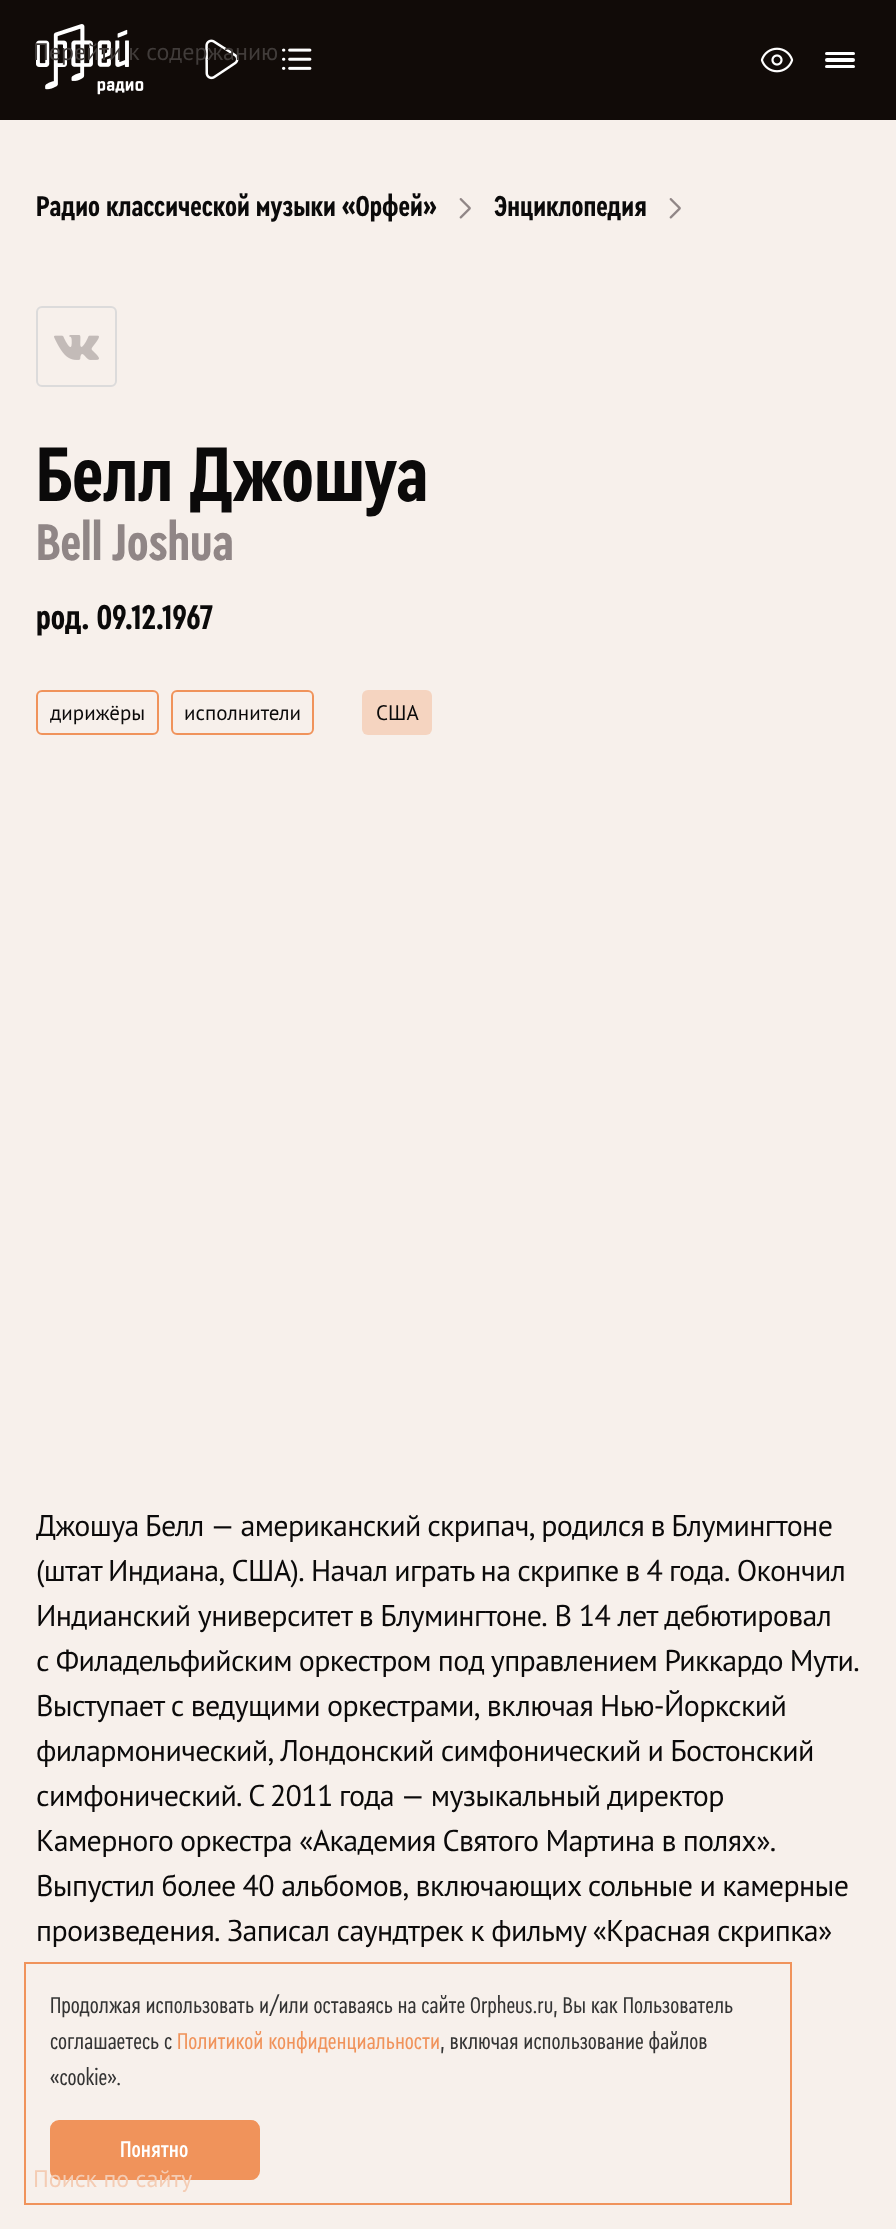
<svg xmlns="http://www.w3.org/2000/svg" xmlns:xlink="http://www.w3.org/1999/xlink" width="896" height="2229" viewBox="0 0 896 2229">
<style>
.cls-1{font:24px PT Sans;fill:#413c3a}
.cls-2{font:bold 30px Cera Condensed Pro;fill:#0b0a0a}
.cls-3{font:bold 81px Cera Condensed Pro;fill:#0b0a0a}
.cls-4{font:bold 54px Cera Condensed Pro;fill:#908686}
.cls-5{font:bold 36px Cera Condensed Pro;fill:#0b0a0a}
.cls-6{font:21px PT Sans;fill:#0b0a0a}
.cls-7{font:30px PT Sans;letter-spacing:-0.65px;fill:#0b0a0a}
.cls-8{font:24px Cera Condensed Pro;fill:#343434}
.cls-9{font:24px Cera Condensed Pro;fill:#f0935b}
.cls-10{font:500 24px Cera Condensed Pro;fill:#ffffff}
.cls-11{font:24px PT Sans;fill:#f4ccb4}
</style>
<rect width="100%" height="100%" fill="#f7f0eb"/>
<rect fill="#110b08" x="0" y="0" width="896" height="120"/>
<image xlink:href="image0.png" x="36" y="24" width="108" height="71"/>
<image xlink:href="image1.png" x="760" y="47" width="34" height="26"/>
<rect fill="#ffffff" x="825" y="52" width="30" height="3" rx="1.5"/>
<rect fill="#ffffff" x="825" y="58" width="30" height="4" rx="2"/>
<rect fill="#ffffff" x="825" y="65" width="30" height="3" rx="1.5"/>
<image xlink:href="image2.png" x="205" y="39" width="34" height="41"/>
<image xlink:href="image3.png" x="282" y="48" width="30" height="22"/>
<image xlink:href="image4.png" x="459" y="198" width="12" height="21"/>
<image xlink:href="image4.png" x="669" y="198" width="12" height="21"/>
<rect fill="none" stroke="#dcdbdb" stroke-width="2" x="37" y="307" width="79" height="79" rx="5"/>
<image xlink:href="image5.png" x="54" y="335" width="45" height="25"/>
<rect fill="none" stroke="#f0935b" stroke-width="2" x="37" y="691" width="121" height="43" rx="5"/>
<rect fill="none" stroke="#f0935b" stroke-width="2" x="172" y="691" width="141" height="43" rx="5"/>
<rect fill="#f5d4c0" x="362" y="690" width="70" height="45" rx="6"/>
<rect fill="none" stroke="#f0935b" stroke-width="2" x="25" y="1963" width="766" height="241"/>
<rect fill="#f0935b" stroke="#f0935b" stroke-width="2" x="51" y="2121" width="208" height="58" rx="8"/>
<text class="cls-1" x="33" y="60">Перейти к содержанию</text>
<text class="cls-2" x="36" y="216">Радио классической музыки «Орфей»</text>
<text class="cls-2" x="494" y="216">Энциклопедия</text>
<text class="cls-3" x="36" y="501">Белл Джошуа</text>
<text class="cls-4" x="36" y="560">Bell Joshua</text>
<text class="cls-5" x="36" y="629">род. 09.12.1967</text>
<text class="cls-6" x="50" y="720">дирижёры</text>
<text class="cls-6" x="184" y="720">исполнители</text>
<text class="cls-6" x="376" y="720">США</text>
<text class="cls-7"><tspan x="36" y="1536" word-spacing="-1">Джошуа Белл — американский скрипач, родился в Блумингтоне</tspan><tspan x="36" y="1581" word-spacing="-0.5">(штат Индиана, США). Начал играть на скрипке в 4 года. Окончил</tspan><tspan x="36" y="1626">Индианский университет в Блумингтоне. В 14 лет дебютировал</tspan><tspan x="36" y="1671" word-spacing="-0.5">с Филадельфийским оркестром под управлением Риккардо Мути.</tspan><tspan x="36" y="1716" word-spacing="-0.25">Выступает с ведущими оркестрами, включая Нью-Йоркский</tspan><tspan x="36" y="1761" word-spacing="-0.5">филармонический, Лондонский симфонический и Бостонский</tspan><tspan x="36" y="1806" word-spacing="-1">симфонический. С 2011 года — музыкальный директор</tspan><tspan x="36" y="1851" word-spacing="-0.5">Камерного оркестра «Академия Святого Мартина в полях».</tspan><tspan x="36" y="1896" word-spacing="-0.25">Выпустил более 40 альбомов, включающих сольные и камерные</tspan><tspan x="36" y="1941" word-spacing="-0.25">произведения. Записал саундтрек к фильму «Красная скрипка»</tspan></text>
<text class="cls-8"><tspan x="50" y="2013">Продолжая использовать и/или оставаясь на сайте Orpheus.ru, Вы как Пользователь</tspan><tspan x="50" y="2049">соглашаетесь с</tspan></text>
<text class="cls-9" x="177" y="2049">Политикой конфиденциальности</text>
<text class="cls-8" x="440" y="2049">, включая использование файлов</text>
<text class="cls-8" x="50" y="2085">«cookie».</text>
<text class="cls-10" x="120" y="2157">Понятно</text>
<text class="cls-11" x="33" y="2187">Поиск по сайту</text>
</svg>
